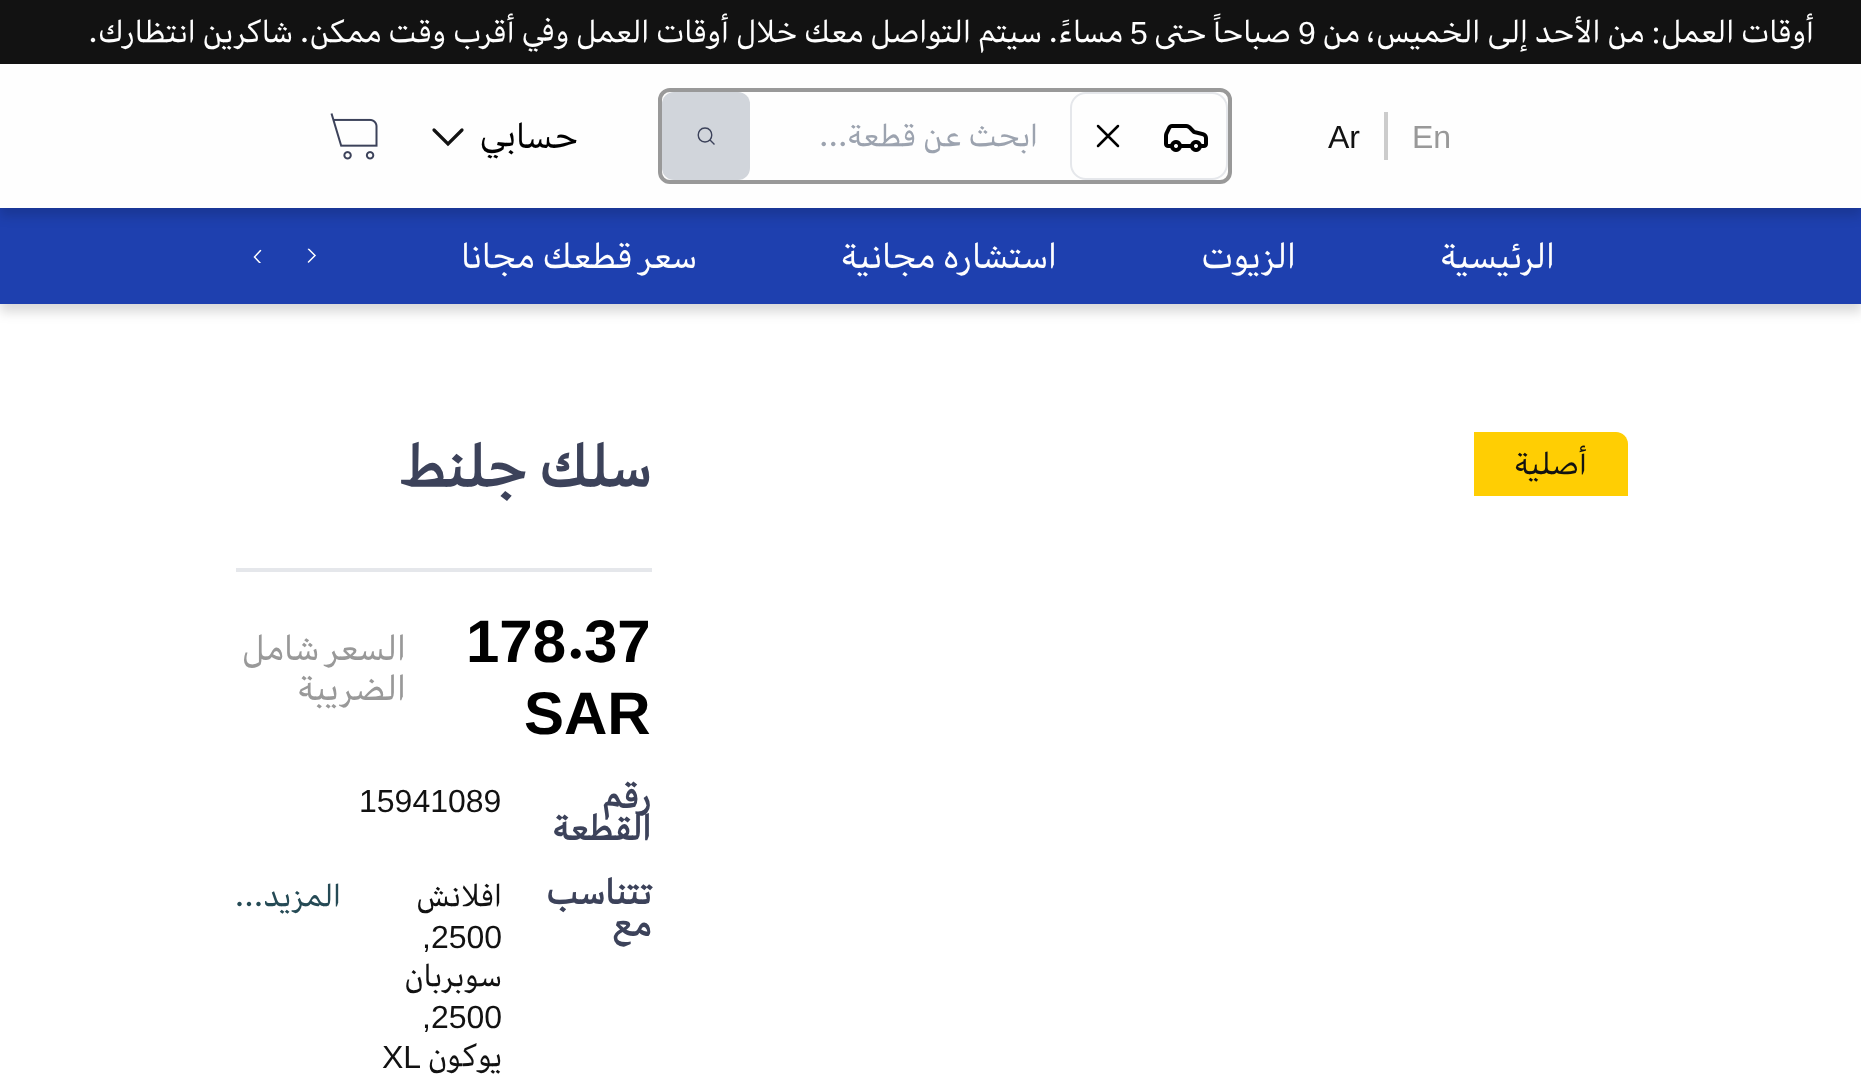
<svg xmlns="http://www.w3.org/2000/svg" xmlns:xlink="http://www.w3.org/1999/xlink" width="1861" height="1075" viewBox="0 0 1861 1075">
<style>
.cls-1{font:32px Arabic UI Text;direction:rtl;fill:#fefefe}
.cls-2{font:32px Liberation Sans;fill:#fefefe}
.cls-3{font:32px Liberation Sans;fill:#999999}
.cls-4{font:32px Liberation Sans;fill:#121212}
.cls-5{font:32px Arabic UI Text;direction:rtl;fill:#9ca3af}
.cls-6{font:36px Arabic UI Text;direction:rtl;fill:#000000}
.cls-7{font:36px Arabic UI Text;direction:rtl;fill:#fefefe}
.cls-8{font:32px Arabic UI Text;direction:rtl;fill:#121212}
.cls-9{font:bold 60px Arabic UI Text;direction:rtl;fill:#3c425a}
.cls-10{font:bold 60px Liberation Sans;fill:#000000}
.cls-11{font:bold 60px Arabic UI Text;fill:#000000}
.cls-12{font:36px Arabic UI Text;direction:rtl;fill:#999999}
.cls-13{font:bold 36px Arabic UI Text;direction:rtl;fill:#3c425a}
.cls-14{font:32px Arabic UI Text;direction:rtl;fill:#254a55}
</style>
<defs>
<clipPath id="clip1"><path d="M318.5 248.5V263H305V248.5Z"/></clipPath>
<clipPath id="clip2"><path d="M265 248.5V263H251.5V248.5Z"/></clipPath>
<clipPath id="clip3"><path d="M250.5 264V249.5H264.5V264Z"/></clipPath>
</defs>
<rect width="100%" height="100%" fill="#ffffff"/>
<rect fill="#000000" fill-opacity="0.15" filter="blur(6px)" x="0" y="216" width="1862" height="96"/>
<rect fill="#1e40af" x="0" y="208" width="1861" height="96"/>
<rect fill="#000000" fill-opacity="0.15" filter="blur(6px)" x="0" y="8" width="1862" height="208"/>
<rect fill="#fefefe" x="0" y="64" width="1861" height="144"/>
<rect fill="#121212" x="0" y="0" width="1861" height="64"/>
<rect fill="#cccccc" x="1384" y="112" width="4" height="48"/>
<rect fill="none" stroke="#999999" stroke-width="4" x="660" y="90" width="570" height="92" rx="10"/>
<rect fill="none" stroke="#e5e7eb" stroke-width="2" x="1071" y="93" width="156" height="86" rx="15"/>
<image xlink:href="image0.png" x="1164" y="124" width="44" height="28"/>
<path fill="none" stroke="#000000" stroke-width="2.5" stroke-linecap="round" stroke-linejoin="round" d="M1118 126L1098 146M1098 126L1118 146"/>
<rect fill="#d1d5db" x="662" y="92" width="88" height="88" rx="12"/>
<path fill="none" stroke="#3c425a" stroke-width="1.4" stroke-linejoin="round" d="M714.5 144.5L709.5 139.5M705 142C696 142 696 128 705 128C714 128 714 142 705 142Z"/>
<path fill="none" stroke="#121212" stroke-width="3.2" stroke-linecap="round" d="M462 130L448 144L434 130"/>
<image xlink:href="image1.png" x="330" y="113" width="48" height="47"/>
<g clip-path="url(#clip1)">
<path fill="none" stroke="#fefefe" stroke-width="1.5" stroke-linecap="round" d="M308.5 249L315 255.5L308.5 262"/>
</g>
<g clip-path="url(#clip2)">
<g clip-path="url(#clip3)">
<path fill="none" stroke="#fefefe" stroke-width="1.5" stroke-linecap="round" d="M260.5 263.5L254.5 257L260.5 250.5"/>
</g>
</g>
<path fill="#ffce03" d="M1474 432H1616C1622.5 432 1628 437.5 1628 444V496H1474Z"/>
<rect fill="#e5e7eb" x="236" y="568" width="416" height="4"/>
<text class="cls-1" x="1814" y="44">أوقات العمل: من الأحد إلى الخميس، من</text>
<text class="cls-2" x="1298" y="44">9</text>
<text class="cls-1" x="1291" y="44">صباحاً حتى</text>
<text class="cls-2" x="1130" y="44">5</text>
<text class="cls-1" x="1123" y="44">مساءً. سيتم التواصل معك خلال أوقات العمل وفي أقرب وقت ممكن. شاكرين انتظارك.</text>
<text class="cls-3" x="1412" y="148">En</text>
<text class="cls-4" x="1328" y="148">Ar</text>
<text class="cls-5" x="1038" y="148">ابحث عن قطعة...</text>
<text class="cls-6" x="578" y="150">حسابي</text>
<text class="cls-7" x="1555" y="270">الرئيسية</text>
<text class="cls-7" x="1296" y="270">الزيوت</text>
<text class="cls-7" x="1057" y="270">استشاره مجانية</text>
<text class="cls-7" x="697" y="270">سعر قطعك مجانا</text>
<text class="cls-8" x="1587" y="476">أصلية</text>
<text class="cls-9" x="651" y="490">سلك جلنط</text>
<text class="cls-10" x="584" y="662">37</text>
<text class="cls-11" x="566" y="662">.</text>
<text class="cls-10" x="466" y="662">178</text>
<text class="cls-10" x="524" y="734">SAR</text>
<text class="cls-12"><tspan x="406" y="662">السعر شامل</tspan><tspan x="406" y="702">الضريبة</tspan></text>
<text class="cls-13"><tspan x="651" y="810">رقم</tspan><tspan x="651" y="842">القطعة</tspan></text>
<text class="cls-4" x="359" y="812">15941089</text>
<text class="cls-13"><tspan x="651" y="906">تتناسب</tspan><tspan x="651" y="938">مع</tspan></text>
<text class="cls-8" x="502" y="908">افلانش</text>
<text class="cls-4" x="422" y="948">,2500</text>
<text class="cls-8" x="502" y="988">سوبربان</text>
<text class="cls-4" x="422" y="1028">,2500</text>
<text class="cls-8" x="502" y="1068">يوكون</text>
<text class="cls-4" x="382" y="1068">XL</text>
<text class="cls-14" x="341" y="908">المزيد...</text>
</svg>
